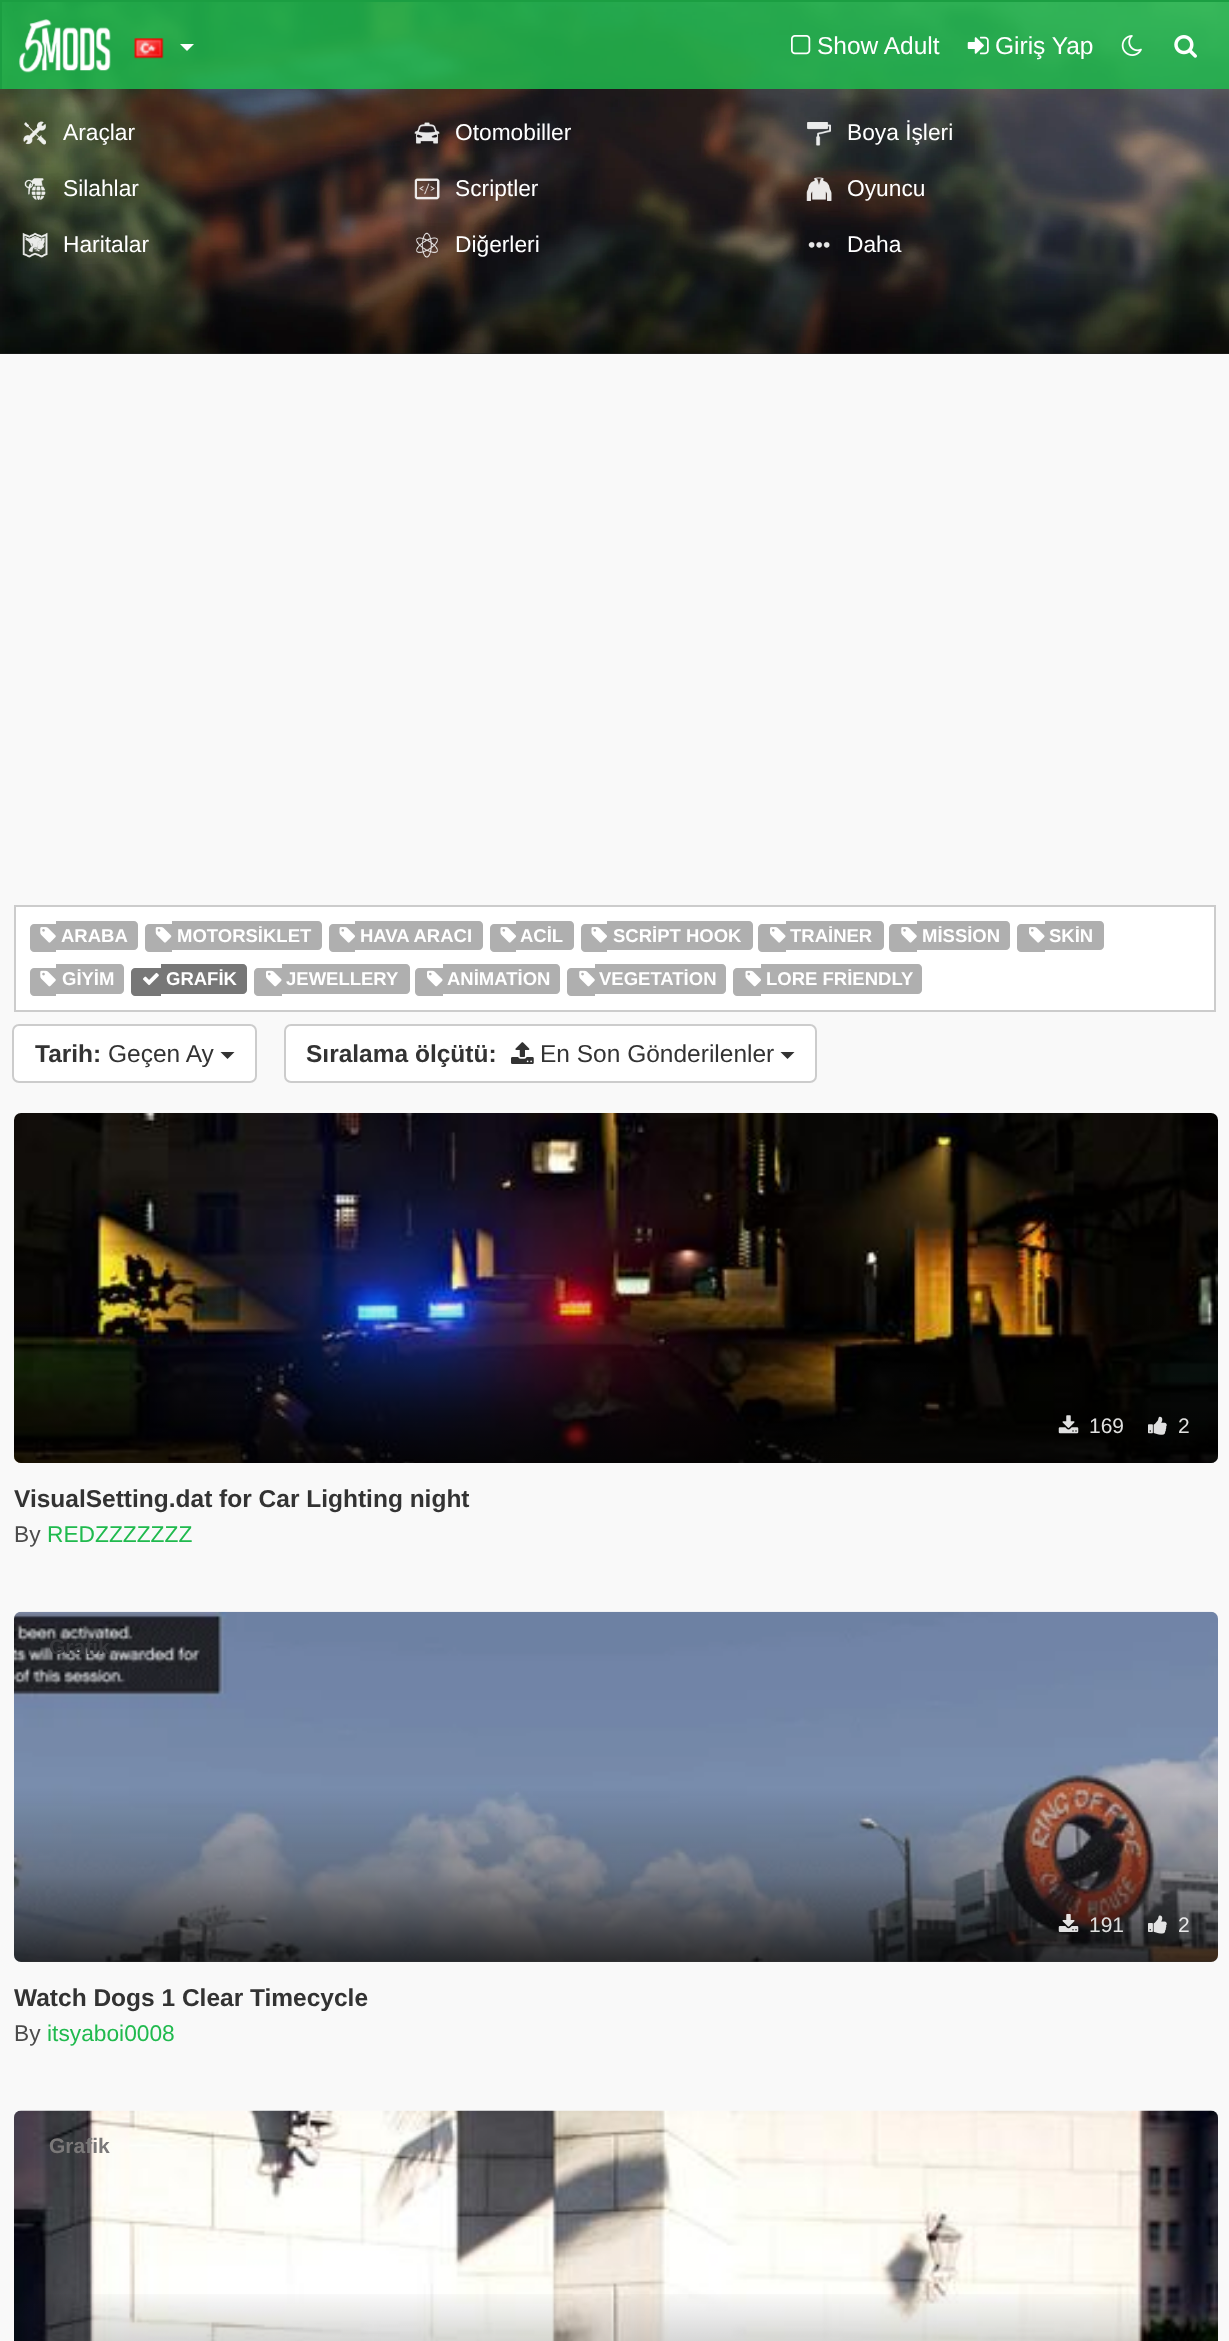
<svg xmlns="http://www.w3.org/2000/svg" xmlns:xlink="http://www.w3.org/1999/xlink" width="1229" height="2341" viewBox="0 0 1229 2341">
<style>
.cls-1{font:24.5px Liberation Sans;fill:#ffffff}
.cls-2{font:22.75px Liberation Sans;fill:#ffffff}
.cls-3{font:bold 18.5px Liberation Sans;fill:#ffffff}
.cls-4{font:bold 24.5px Liberation Sans;fill:#333333}
.cls-5{font:24.5px Liberation Sans;fill:#333333}
.cls-6{font:21px Liberation Sans;fill:#e1e1e0}
.cls-7{font:22.75px Liberation Sans;fill:#4b4b4b}
.cls-8{font:22.75px Liberation Sans;fill:#20ba4e}
.cls-9{font:bold 21px Liberation Sans;fill:#36373b}
.cls-10{font:21px Liberation Sans;fill:#eaeaeb}
.cls-11{font:bold 21px Liberation Sans;fill:#7a7878}
</style>
<defs>
<linearGradient id="g1" gradientUnits="userSpaceOnUse" x1="616" y1="1113" x2="616" y2="1463"><stop offset="0.5" stop-color="#000000" stop-opacity="0"/><stop offset="0.75" stop-color="#000000" stop-opacity="0.25"/><stop offset="1" stop-color="#000000" stop-opacity="0.75"/></linearGradient>
<linearGradient id="g2" gradientUnits="userSpaceOnUse" x1="616" y1="1612" x2="616" y2="1962"><stop offset="0.5" stop-color="#000000" stop-opacity="0"/><stop offset="0.75" stop-color="#000000" stop-opacity="0.25"/><stop offset="1" stop-color="#000000" stop-opacity="0.75"/></linearGradient>
<linearGradient id="g3" gradientUnits="userSpaceOnUse" x1="616" y1="2111" x2="616" y2="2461"><stop offset="0.5" stop-color="#000000" stop-opacity="0"/><stop offset="0.75" stop-color="#000000" stop-opacity="0.25"/><stop offset="1" stop-color="#000000" stop-opacity="0.75"/></linearGradient>
</defs>
<rect width="100%" height="100%" fill="#f9f9f9"/>
<rect fill="#222222" x="0" y="353" width="1229" height="1"/>
<image xlink:href="image6.png" x="0" y="2" width="1229" height="352"/>
<rect fill="#20ba4e" fill-opacity="0.85" x="2" y="2" width="1227" height="87"/>
<rect fill="#1b9e42" x="0" y="0" width="1229" height="2"/>
<rect fill="#1b9e42" x="0" y="0" width="2" height="89"/>
<image xlink:href="image0.png" x="19" y="19" width="92" height="54"/>
<image xlink:href="image1.png" x="134" y="38" width="30" height="21"/>
<path fill="#ffffff" d="M180 44H194L187 51Z"/>
<image xlink:href="image2.png" x="791" y="35" width="20" height="20"/>
<image xlink:href="image3.png" x="967" y="36" width="22" height="19"/>
<image xlink:href="image4.png" x="1121" y="35" width="21" height="21"/>
<image xlink:href="image5.png" x="1174" y="35" width="23" height="23"/>
<image xlink:href="image7.png" x="23" y="121" width="23" height="24"/>
<image xlink:href="image8.png" x="414" y="122" width="26" height="22"/>
<image xlink:href="image9.png" x="807" y="122" width="24" height="24"/>
<image xlink:href="image10.png" x="24" y="178" width="22" height="22"/>
<image xlink:href="image11.png" x="414" y="178" width="26" height="22"/>
<image xlink:href="image12.png" x="806" y="177" width="26" height="24"/>
<image xlink:href="image13.png" x="22" y="232" width="26" height="26"/>
<image xlink:href="image14.png" x="416" y="232" width="22" height="26"/>
<image xlink:href="image15.png" x="808" y="241" width="22" height="7"/>
<rect fill="#ffffff" stroke="#cccccc" stroke-width="2" x="15" y="906" width="1200" height="105"/>
<path fill="#afafaf" d="M34 924H56V952H34C32 952 30 950 30 948V928C30 926 32 924 34 924Z"/>
<path fill="#afafaf" d="M56 921H134C136 921 138 923 138 925V946C138 948 136 950 134 950H56Z"/>
<image xlink:href="image16.png" x="40" y="927" width="16" height="16"/>
<path fill="#afafaf" d="M149 924H172V952H149C147 952 145 950 145 948V928C145 926 147 924 149 924Z"/>
<path fill="#afafaf" d="M172 921H318C320 921 322 923 322 925V946C322 948 320 950 318 950H172Z"/>
<image xlink:href="image17.png" x="155" y="927" width="17" height="16"/>
<path fill="#afafaf" d="M333 924H355V952H333C331 952 329 950 329 948V928C329 926 331 924 333 924Z"/>
<path fill="#afafaf" d="M355 921H479C481 921 483 923 483 925V946C483 948 481 950 479 950H355Z"/>
<image xlink:href="image18.png" x="339" y="927" width="16" height="16"/>
<path fill="#afafaf" d="M494 924H516V952H494C492 952 490 950 490 948V928C490 926 492 924 494 924Z"/>
<path fill="#afafaf" d="M516 921H570C572 921 574 923 574 925V946C574 948 572 950 570 950H516Z"/>
<image xlink:href="image18.png" x="500" y="927" width="16" height="16"/>
<path fill="#afafaf" d="M585 924H607V952H585C583 952 581 950 581 948V928C581 926 583 924 585 924Z"/>
<path fill="#afafaf" d="M607 921H749C751 921 753 923 753 925V946C753 948 751 950 749 950H607Z"/>
<image xlink:href="image18.png" x="591" y="927" width="16" height="16"/>
<path fill="#afafaf" d="M762 924H786V952H762C760 952 758 950 758 948V928C758 926 760 924 762 924Z"/>
<path fill="#afafaf" d="M786 921H880C882 921 884 923 884 925V946C884 948 882 950 880 950H786Z"/>
<image xlink:href="image19.png" x="770" y="927" width="16" height="16"/>
<path fill="#afafaf" d="M893 924H917V952H893C891 952 889 950 889 948V928C889 926 891 924 893 924Z"/>
<path fill="#afafaf" d="M917 921H1006C1008 921 1010 923 1010 925V946C1010 948 1008 950 1006 950H917Z"/>
<image xlink:href="image16.png" x="901" y="927" width="16" height="16"/>
<path fill="#afafaf" d="M1021 924H1045V952H1021C1019 952 1017 950 1017 948V928C1017 926 1019 924 1021 924Z"/>
<path fill="#afafaf" d="M1045 921H1100C1102 921 1104 923 1104 925V946C1104 948 1102 950 1100 950H1045Z"/>
<image xlink:href="image19.png" x="1029" y="927" width="16" height="16"/>
<path fill="#afafaf" d="M34 968H56V996H34C32 996 30 994 30 992V972C30 970 32 968 34 968Z"/>
<path fill="#afafaf" d="M56 964H120C122 964 124 966 124 968V990C124 992 122 994 120 994H56Z"/>
<image xlink:href="image20.png" x="40" y="970" width="16" height="17"/>
<path fill="#777777" d="M135 968H161V996H135C133 996 131 994 131 992V972C131 970 133 968 135 968Z"/>
<path fill="#777777" d="M161 964H243C245 964 247 966 247 968V990C247 992 245 994 243 994H161Z"/>
<image xlink:href="image21.png" x="143" y="972" width="16" height="14"/>
<path fill="#afafaf" d="M258 968H282V996H258C256 996 254 994 254 992V972C254 970 256 968 258 968Z"/>
<path fill="#afafaf" d="M282 964H406C408 964 410 966 410 968V990C410 992 408 994 406 994H282Z"/>
<image xlink:href="image22.png" x="266" y="970" width="16" height="17"/>
<path fill="#afafaf" d="M419 968H443V996H419C417 996 415 994 415 992V972C415 970 417 968 419 968Z"/>
<path fill="#afafaf" d="M443 964H556C558 964 560 966 560 968V990C560 992 558 994 556 994H443Z"/>
<image xlink:href="image22.png" x="427" y="970" width="16" height="17"/>
<path fill="#afafaf" d="M571 968H595V996H571C569 996 567 994 567 992V972C567 970 569 968 571 968Z"/>
<path fill="#afafaf" d="M595 964H722C724 964 726 966 726 968V990C726 992 724 994 722 994H595Z"/>
<image xlink:href="image20.png" x="579" y="970" width="16" height="17"/>
<path fill="#afafaf" d="M737 968H761V996H737C735 996 733 994 733 992V972C733 970 735 968 737 968Z"/>
<path fill="#afafaf" d="M761 964H918C920 964 922 966 922 968V990C922 992 920 994 918 994H761Z"/>
<image xlink:href="image23.png" x="745" y="970" width="16" height="17"/>
<rect fill="#ffffff" stroke="#cccccc" stroke-width="2" x="13" y="1025" width="243" height="57" rx="6"/>
<path fill="#333333" d="M220.5 1052H234.5L227.5 1059Z"/>
<rect fill="#ffffff" stroke="#cccccc" stroke-width="2" x="285" y="1025" width="531" height="57" rx="6"/>
<image xlink:href="image24.png" x="511" y="1042" width="23" height="22"/>
<path fill="#333333" d="M780.5 1052H794.5L787.5 1059Z"/>
<image xlink:href="image25.png" x="14" y="1113" width="1204" height="350"/>
<rect fill="url(#g1)" x="14" y="1113" width="1204" height="350" rx="7"/>
<image xlink:href="image26.png" x="1058" y="1415" width="21" height="19"/>
<image xlink:href="image27.png" x="1148" y="1416" width="19" height="19"/>
<image xlink:href="image28.png" x="14" y="1611" width="1204" height="351"/>
<rect fill="url(#g2)" x="14" y="1612" width="1204" height="350" rx="7"/>
<image xlink:href="image29.png" x="1058" y="1914" width="21" height="18"/>
<image xlink:href="image30.png" x="1148" y="1915" width="19" height="19"/>
<image xlink:href="image31.png" x="14" y="2110" width="1204" height="231"/>
<rect fill="url(#g3)" x="14" y="2294" width="1204" height="47"/>
<text class="cls-1" x="817" y="54">Show Adult</text>
<text class="cls-1" x="995" y="54">Giriş Yap</text>
<text class="cls-2" x="63" y="140">Araçlar</text>
<text class="cls-2" x="455" y="140">Otomobiller</text>
<text class="cls-2" x="847" y="140">Boya İşleri</text>
<text class="cls-2" x="63" y="196">Silahlar</text>
<text class="cls-2" x="455" y="196">Scriptler</text>
<text class="cls-2" x="847" y="196">Oyuncu</text>
<text class="cls-2" x="63" y="252">Haritalar</text>
<text class="cls-2" x="455" y="252">Diğerleri</text>
<text class="cls-2" x="847" y="252">Daha</text>
<text class="cls-3" x="61" y="942">ARABA</text>
<text class="cls-3" x="177" y="942">MOTORSİKLET</text>
<text class="cls-3" x="360" y="942">HAVA ARACI</text>
<text class="cls-3" x="520" y="942">ACİL</text>
<text class="cls-3" x="613" y="942">SCRİPT HOOK</text>
<text class="cls-3" x="790" y="942">TRAİNER</text>
<text class="cls-3" x="922" y="942">MİSSİON</text>
<text class="cls-3" x="1049" y="942">SKİN</text>
<text class="cls-3" x="62" y="985">GİYİM</text>
<text class="cls-3" x="166" y="985">GRAFİK</text>
<text class="cls-3" x="286" y="985">JEWELLERY</text>
<text class="cls-3" x="447" y="985">ANİMATİON</text>
<text class="cls-3" x="599" y="985">VEGETATİON</text>
<text class="cls-3" x="766" y="985">LORE FRİENDLY</text>
<text class="cls-4" x="35" y="1062">Tarih:</text>
<text class="cls-5" x="108" y="1062">Geçen Ay</text>
<text class="cls-4" x="306" y="1062">Sıralama ölçütü:</text>
<text class="cls-5" x="540" y="1062">En Son Gönderilenler</text>
<text class="cls-6" x="1089" y="1433">169</text>
<text class="cls-6" x="1178" y="1433">2</text>
<text class="cls-4" x="14" y="1507">VisualSetting.dat for Car Lighting night</text>
<text class="cls-7" x="14" y="1542">By</text>
<text class="cls-8" x="47" y="1542">REDZZZZZZZ</text>
<text class="cls-9" x="49" y="1654">Grafik</text>
<text class="cls-6" x="1089" y="1932">191</text>
<text class="cls-10" x="1178" y="1932">2</text>
<text class="cls-4" x="14" y="2006">Watch Dogs 1 Clear Timecycle</text>
<text class="cls-7" x="14" y="2041">By</text>
<text class="cls-8" x="47" y="2041">itsyaboi0008</text>
<text class="cls-11" x="49" y="2153">Grafik</text>
</svg>
